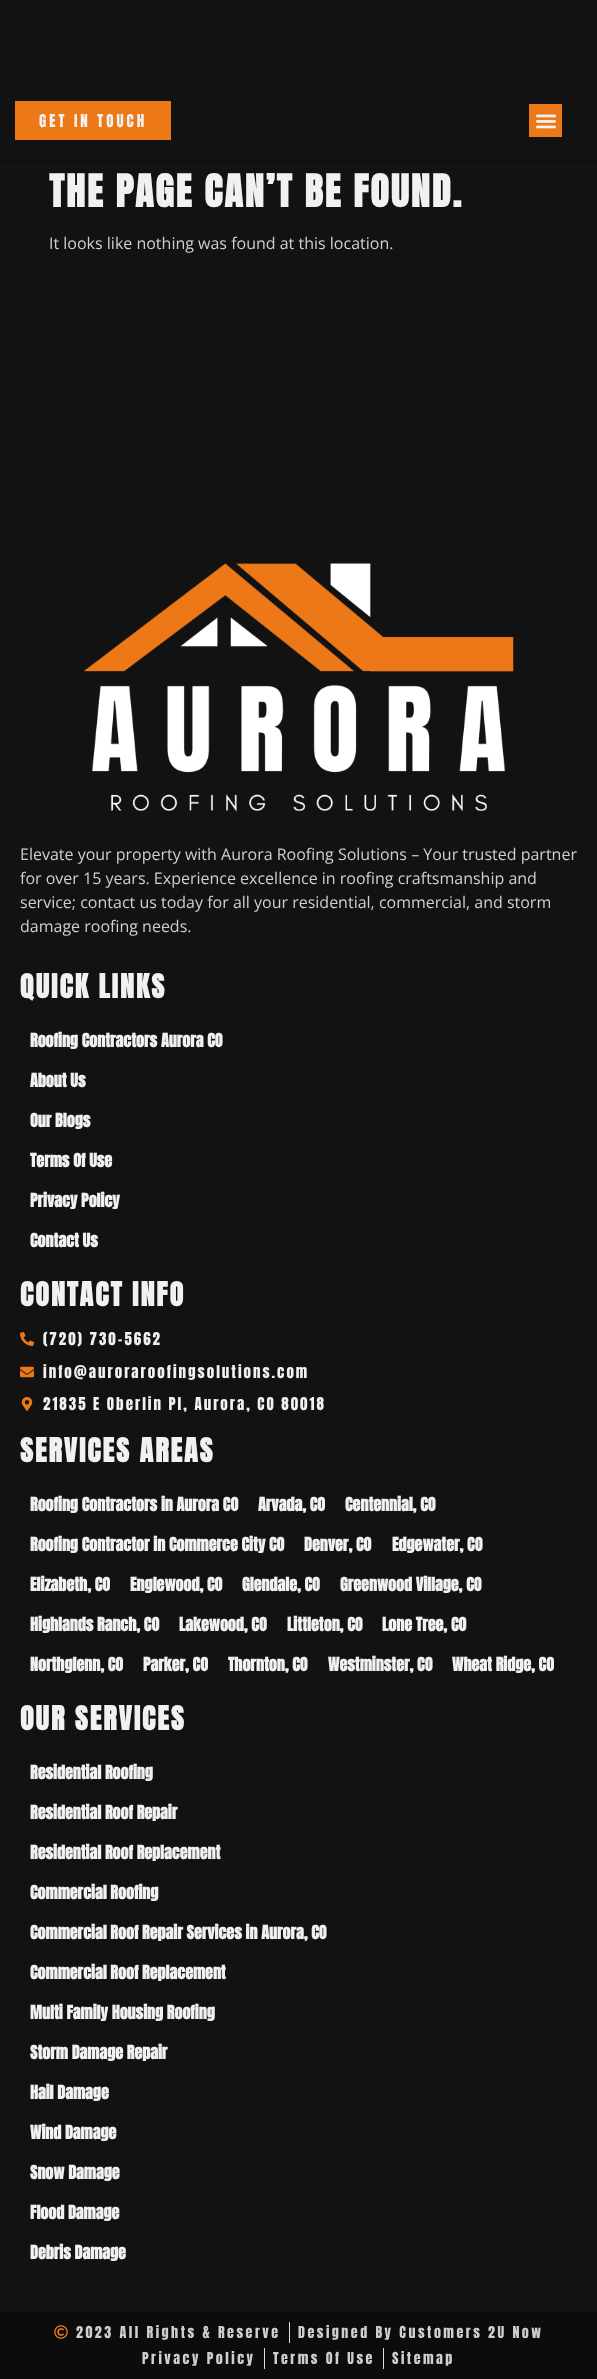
<svg xmlns="http://www.w3.org/2000/svg" xmlns:xlink="http://www.w3.org/1999/xlink" width="597" height="2379" viewBox="0 0 597 2379">
<style>
.cls-1{font:15px Anton;letter-spacing:3px;fill:#f1f1f1}
.cls-2{font:bold 38px Anton;letter-spacing:2px;fill:#f1f1f1}
.cls-3{font:16px Open Sans;fill:#cfcfcf}
.cls-4{font:bold 28px Anton;letter-spacing:2px;fill:#f1f1f1}
.cls-5{font:bold 16px Anton;fill:#f1f1f1}
.cls-6{font:15px Anton;letter-spacing:2px;fill:#f1f1f1}
.cls-7{font:14px Anton;letter-spacing:2.5px;fill:#cfcfcf}
</style>
<rect width="100%" height="100%" fill="#121212"/>
<rect fill="#0c0c0c" x="0" y="160" width="597" height="1"/>
<rect fill="#ed7817" x="15" y="101" width="156" height="39"/>
<rect fill="#ed7817" x="529" y="104" width="33" height="33"/>
<image xlink:href="image0.png" x="535" y="114" width="22" height="15"/>
<image xlink:href="image1.png" x="84" y="563" width="430" height="249"/>
<image xlink:href="image2.png" x="20" y="1332" width="14" height="14"/>
<image xlink:href="image3.png" x="20" y="1366" width="14" height="12"/>
<image xlink:href="image4.png" x="21" y="1397" width="12" height="14"/>
<rect fill="#0c0c0c" x="0" y="2312" width="597" height="67"/>
<image xlink:href="image5.png" x="54" y="2325" width="14" height="14"/>
<rect fill="#dddddd" x="289" y="2322" width="1" height="21"/>
<rect fill="#dddddd" x="264" y="2348" width="1" height="21"/>
<rect fill="#dddddd" x="383" y="2348" width="1" height="21"/>
<text class="cls-1" x="39" y="127">GET IN TOUCH</text>
<text class="cls-2" x="49" y="207">THE PAGE CAN’T BE FOUND.</text>
<text class="cls-3" x="49" y="249">It looks like nothing was found at this location.</text>
<text class="cls-3"><tspan x="20" y="860">Elevate your property with Aurora Roofing Solutions – Your trusted partner</tspan><tspan x="20" y="884">for over 15 years. Experience excellence in roofing craftsmanship and</tspan><tspan x="20" y="908">service; contact us today for all your residential, commercial, and storm</tspan><tspan x="20" y="932">damage roofing needs.</tspan></text>
<text class="cls-4" x="20" y="998">QUICK LINKS</text>
<text class="cls-5" x="30" y="1047">Roofing Contractors Aurora CO</text>
<text class="cls-5" x="30" y="1087">About Us</text>
<text class="cls-5" x="30" y="1127">Our Blogs</text>
<text class="cls-5" x="30" y="1167">Terms Of Use</text>
<text class="cls-5" x="30" y="1207">Privacy Policy</text>
<text class="cls-5" x="30" y="1247">Contact Us</text>
<text class="cls-4" x="20" y="1306">CONTACT INFO</text>
<text class="cls-6" x="43" y="1345">(720) 730-5662</text>
<text class="cls-6" x="43" y="1378">info@auroraroofingsolutions.com</text>
<text class="cls-6" x="43" y="1410">21835 E Oberlin Pl, Aurora, CO 80018</text>
<text class="cls-4" x="20" y="1462">SERVICES AREAS</text>
<text class="cls-5" x="30" y="1511">Roofing Contractors in Aurora CO</text>
<text class="cls-5" x="258" y="1511">Arvada, CO</text>
<text class="cls-5" x="345" y="1511">Centennial, CO</text>
<text class="cls-5" x="30" y="1551">Roofing Contractor in Commerce City CO</text>
<text class="cls-5" x="304" y="1551">Denver, CO</text>
<text class="cls-5" x="392" y="1551">Edgewater, CO</text>
<text class="cls-5" x="30" y="1591">Elizabeth, CO</text>
<text class="cls-5" x="130" y="1591">Englewood, CO</text>
<text class="cls-5" x="242" y="1591">Glendale, CO</text>
<text class="cls-5" x="340" y="1591">Greenwood Village, CO</text>
<text class="cls-5" x="30" y="1631">Highlands Ranch, CO</text>
<text class="cls-5" x="179" y="1631">Lakewood, CO</text>
<text class="cls-5" x="287" y="1631">Littleton, CO</text>
<text class="cls-5" x="382" y="1631">Lone Tree, CO</text>
<text class="cls-5" x="30" y="1671">Northglenn, CO</text>
<text class="cls-5" x="143" y="1671">Parker, CO</text>
<text class="cls-5" x="228" y="1671">Thornton, CO</text>
<text class="cls-5" x="328" y="1671">Westminster, CO</text>
<text class="cls-5" x="452" y="1671">Wheat Ridge, CO</text>
<text class="cls-4" x="20" y="1730">OUR SERVICES</text>
<text class="cls-5" x="30" y="1779">Residential Roofing</text>
<text class="cls-5" x="30" y="1819">Residential Roof Repair</text>
<text class="cls-5" x="30" y="1859">Residential Roof Replacement</text>
<text class="cls-5" x="30" y="1899">Commercial Roofing</text>
<text class="cls-5" x="30" y="1939">Commercial Roof Repair Services in Aurora, CO</text>
<text class="cls-5" x="30" y="1979">Commercial Roof Replacement</text>
<text class="cls-5" x="30" y="2019">Multi Family Housing Roofing</text>
<text class="cls-5" x="30" y="2059">Storm Damage Repair</text>
<text class="cls-5" x="30" y="2099">Hail Damage</text>
<text class="cls-5" x="30" y="2139">Wind Damage</text>
<text class="cls-5" x="30" y="2179">Snow Damage</text>
<text class="cls-5" x="30" y="2219">Flood Damage</text>
<text class="cls-5" x="30" y="2259">Debris Damage</text>
<text class="cls-7" x="76" y="2338">2023 All Rights &amp; Reserve</text>
<text class="cls-7" x="298" y="2338">Designed By Customers 2U Now</text>
<text class="cls-7" x="142" y="2364">Privacy Policy</text>
<text class="cls-7" x="273" y="2364">Terms Of Use</text>
<text class="cls-7" x="392" y="2364">Sitemap</text>
</svg>
